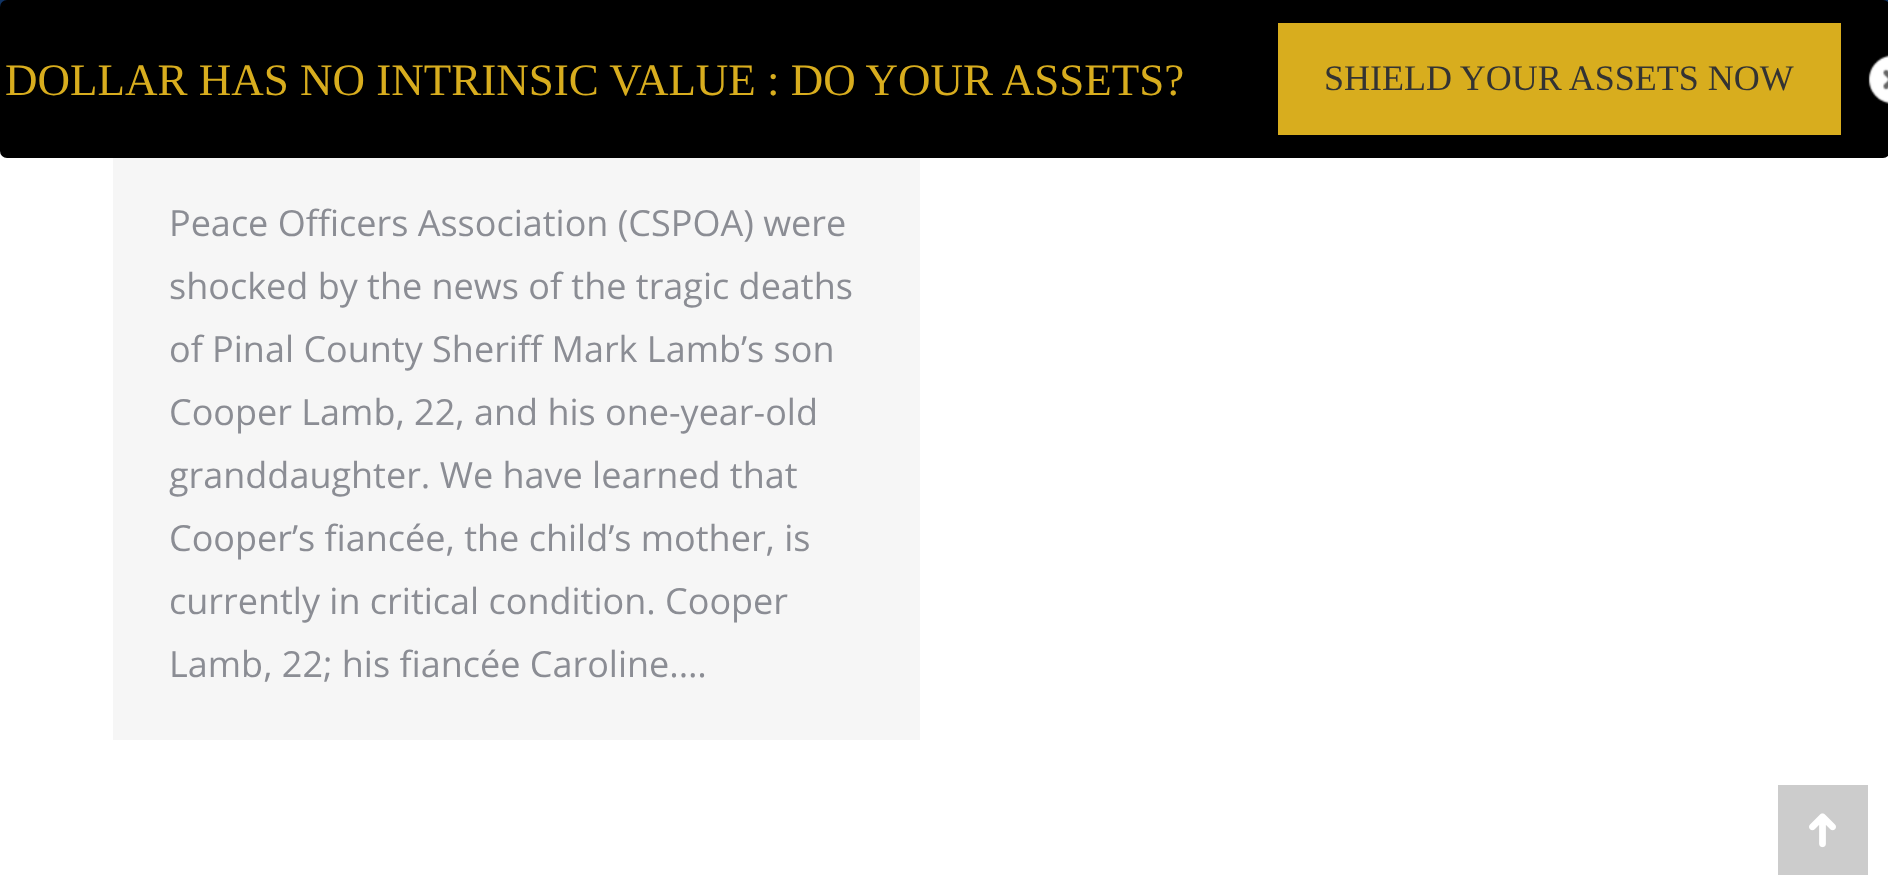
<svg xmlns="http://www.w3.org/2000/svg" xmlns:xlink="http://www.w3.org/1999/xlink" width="1888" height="896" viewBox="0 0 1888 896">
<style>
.cls-1{font:45px Liberation Serif;fill:#d8ad1e}
.cls-2{font:36px Liberation Serif;fill:#333333}
.cls-3{font:36px Open Sans;fill:#8b8d94}
</style>
<rect width="100%" height="100%" fill="#ffffff"/>
<rect fill="#103465" x="0" y="0" width="1888" height="7"/>
<rect fill="#000000" x="0" y="0" width="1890" height="158" rx="7"/>
<rect fill="#d8ad1e" x="1278" y="23" width="563" height="112"/>
<image xlink:href="image0.png" x="1868" y="54" width="20" height="50"/>
<rect fill="#f6f6f6" x="113" y="158" width="807" height="582"/>
<rect fill="#cccccc" x="1778" y="785" width="90" height="90"/>
<image xlink:href="image1.png" x="1809" y="813" width="27" height="35"/>
<text class="cls-1" x="5" y="95">DOLLAR HAS NO INTRINSIC VALUE : DO YOUR ASSETS?</text>
<text class="cls-2" x="1324" y="90">SHIELD YOUR ASSETS NOW</text>
<text class="cls-3"><tspan x="169" y="236">Peace Officers Association (CSPOA) were</tspan><tspan x="169" y="299">shocked by the news of the tragic deaths</tspan><tspan x="169" y="362">of Pinal County Sheriff Mark Lamb’s son</tspan><tspan x="169" y="425">Cooper Lamb, 22, and his one-year-old</tspan><tspan x="169" y="488">granddaughter. We have learned that</tspan><tspan x="169" y="551">Cooper’s fiancée, the child’s mother, is</tspan><tspan x="169" y="614">currently in critical condition. Cooper</tspan><tspan x="169" y="677">Lamb, 22; his fiancée Caroline.…</tspan></text>
</svg>
